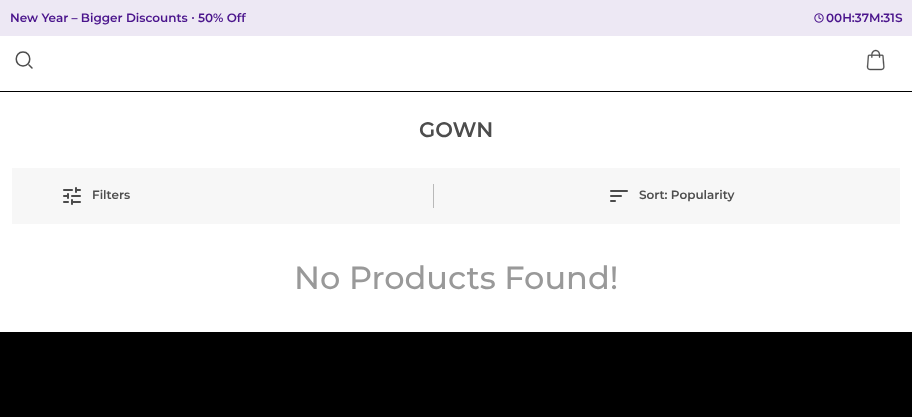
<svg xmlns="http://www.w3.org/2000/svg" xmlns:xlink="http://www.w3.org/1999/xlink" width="912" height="417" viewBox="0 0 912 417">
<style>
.cls-1{font:600 12px Montserrat;fill:#4a148c}
.cls-2{font:600 21px Montserrat;fill:#4d4d4d}
.cls-3{font:600 12px Montserrat;fill:#4d4d4d}
.cls-4{font:500 32px Montserrat;fill:#999999}
</style>
<rect width="100%" height="100%" fill="#ffffff"/>
<rect fill="#000000" x="0" y="91" width="912" height="1"/>
<rect fill="#ede8f4" x="0" y="0" width="912" height="36"/>
<circle fill="#4a148c" cx="193" cy="18" r="1"/>
<image xlink:href="image0.png" x="814" y="13" width="10" height="10"/>
<path fill="none" stroke="#4d4d4d" stroke-width="1.5" stroke-linecap="round" stroke-linejoin="round" d="M23 66C32 66 32 52 23 52C14 52 14 66 23 66ZM32 68L29 65"/>
<image xlink:href="image1.png" x="866" y="49" width="19" height="22"/>
<rect fill="#f7f7f7" x="12" y="168" width="888" height="56"/>
<image xlink:href="image2.png" x="63" y="187" width="18" height="18"/>
<rect fill="#b9b9b9" x="433" y="184" width="1" height="24"/>
<image xlink:href="image3.png" x="610" y="190" width="18" height="12"/>
<rect fill="#000000" x="0" y="332" width="912" height="85"/>
<text class="cls-1" x="10" y="22">New Year – Bigger Discounts</text>
<text class="cls-1" x="198" y="22">50% Off</text>
<text class="cls-1" x="826" y="22">00H:37M:31S</text>
<text class="cls-2" x="419" y="137">GOWN</text>
<text class="cls-3" x="92" y="199">Filters</text>
<text class="cls-3" x="639" y="199">Sort: Popularity</text>
<text class="cls-4" x="294" y="289">No Products Found!</text>
</svg>
